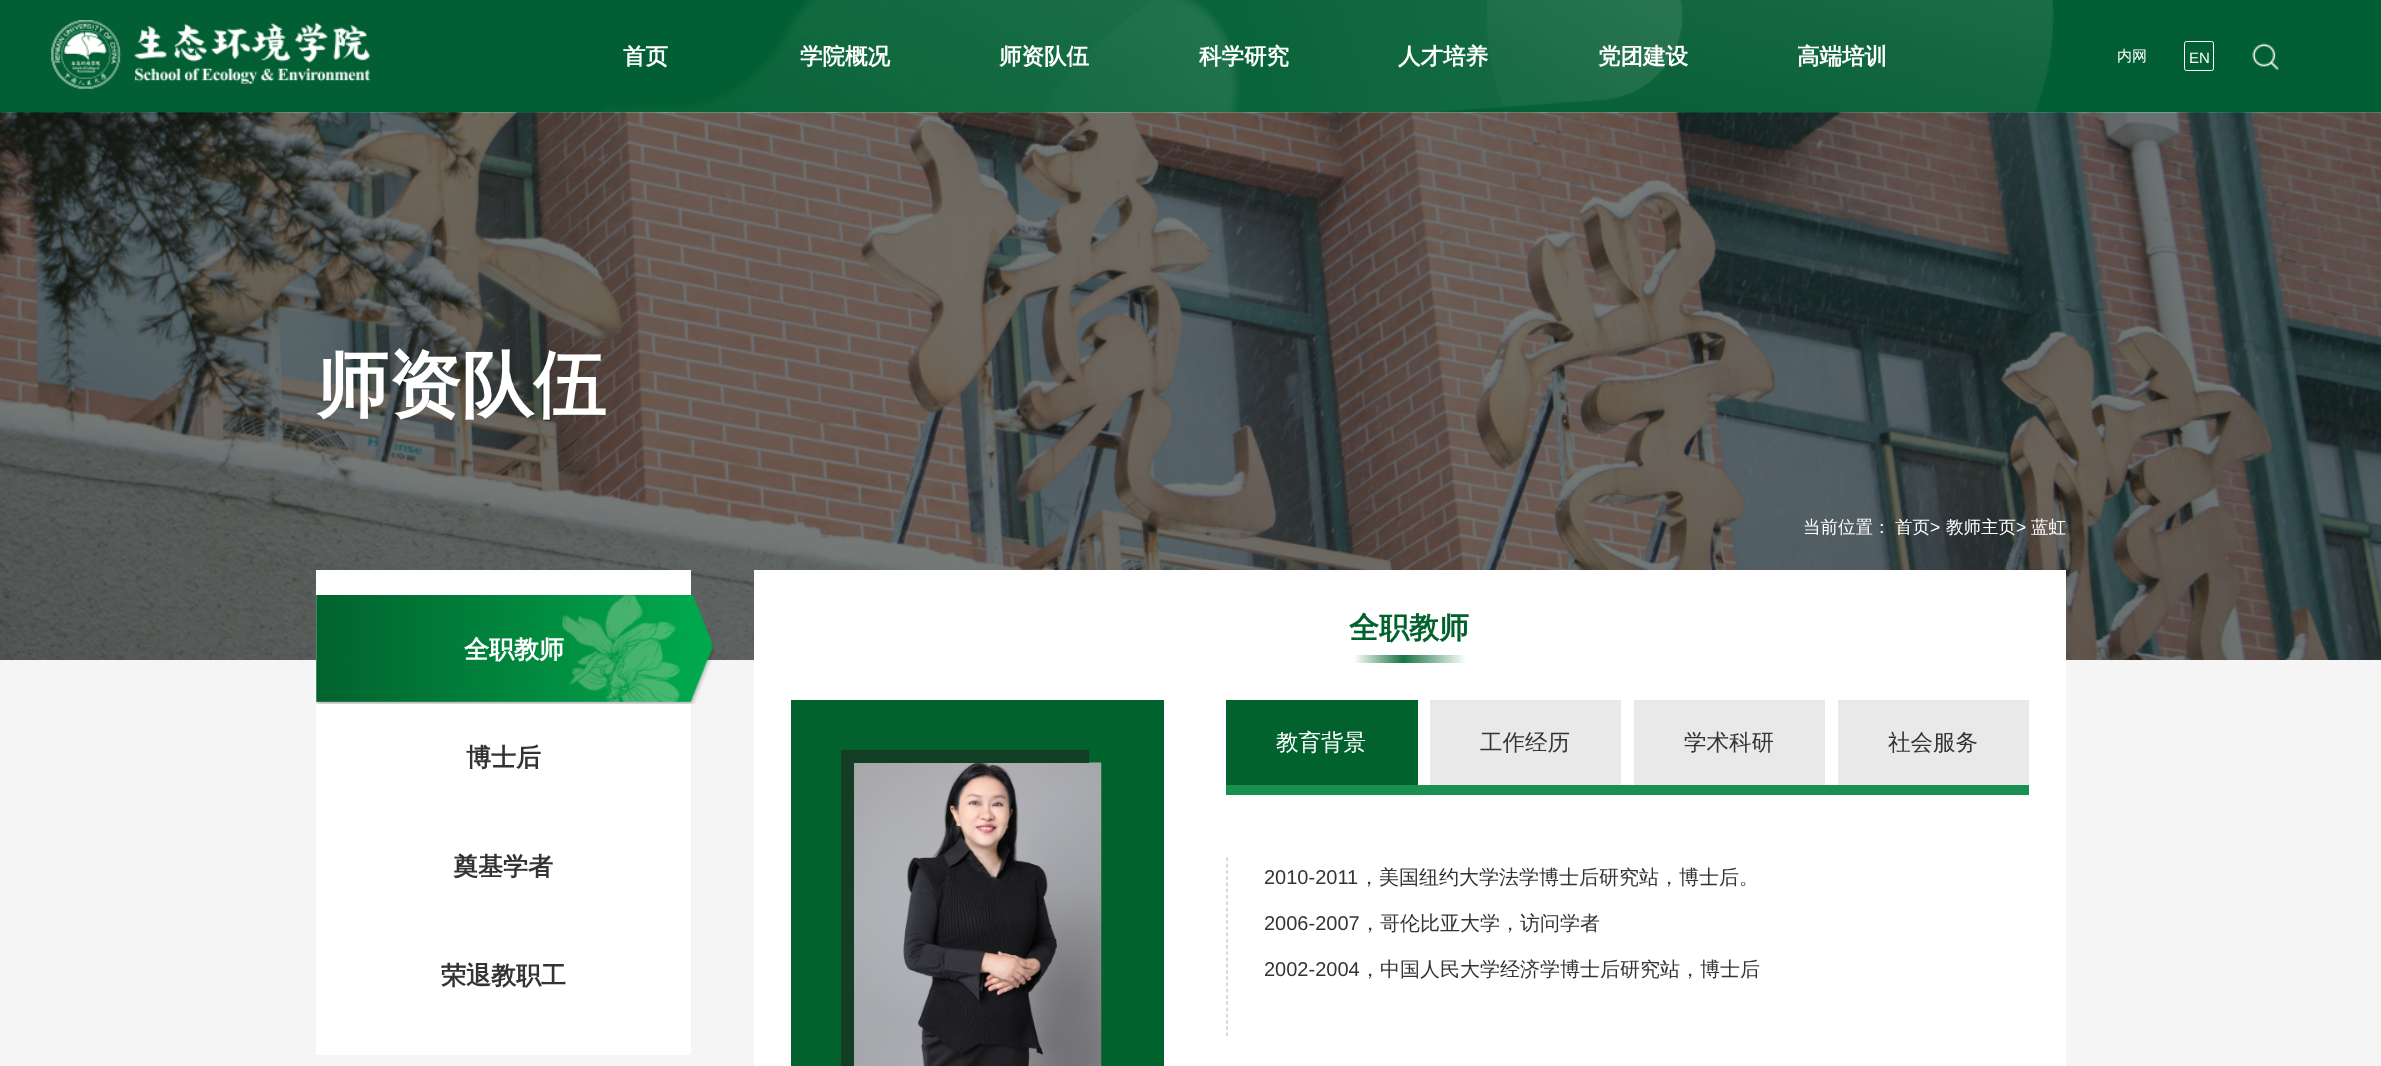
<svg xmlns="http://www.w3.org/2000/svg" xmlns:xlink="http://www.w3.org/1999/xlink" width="2381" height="1066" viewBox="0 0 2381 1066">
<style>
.cls-1{font:bold 22.5px WenQuanYi Zen Hei;fill:#ffffff}
.cls-2{font:500 15px WenQuanYi Zen Hei;fill:#ffffff}
.cls-3{font:15px Liberation Sans;fill:#ffffff}
.cls-4{font:bold 72.5px WenQuanYi Zen Hei;fill:#ffffff}
.cls-5{font:500 17.5px WenQuanYi Zen Hei;fill:#ffffff}
.cls-6{font:17.5px Liberation Sans;fill:#ffffff}
.cls-7{font:bold 25px WenQuanYi Zen Hei;fill:#ffffff}
.cls-8{font:bold 25px WenQuanYi Zen Hei;fill:#333333}
.cls-9{font:bold 30px WenQuanYi Zen Hei;fill:#01622d}
.cls-10{font:500 22.5px WenQuanYi Zen Hei;fill:#ffffff}
.cls-11{font:500 22.5px WenQuanYi Zen Hei;fill:#333333}
.cls-12{font:20px Liberation Sans;fill:#333333}
.cls-13{font:500 20px WenQuanYi Zen Hei;fill:#333333}
</style>
<defs>
<linearGradient id="g1" gradientUnits="userSpaceOnUse" x1="1354" y1="659" x2="1466" y2="659"><stop offset="0" stop-color="#ffffff"/><stop offset="0.44" stop-color="#187542"/><stop offset="1" stop-color="#ffffff"/></linearGradient>
</defs>
<rect width="100%" height="100%" fill="#f5f5f5"/>
<rect fill="#025f33" x="0" y="0" width="2381" height="113"/>
<image xlink:href="image0.png" x="51" y="20" width="320" height="69"/>
<image xlink:href="image1.png" x="603" y="0" width="1451" height="113"/>
<rect fill="none" stroke="#ffffff" x="2184.5" y="41.5" width="29" height="29" rx="2"/>
<image xlink:href="image2.png" x="2252" y="43" width="27" height="28"/>
<image xlink:href="image3.png" x="0" y="112" width="2381" height="548"/>
<rect fill="#ffffff" x="316" y="570" width="375" height="485"/>
<image xlink:href="image4.png" x="316" y="595" width="398" height="109"/>
<rect fill="#ffffff" x="754" y="570" width="1312" height="496"/>
<rect fill="url(#g1)" x="1354" y="655" width="112" height="8"/>
<rect fill="#01622d" x="791" y="700" width="373" height="366"/>
<image xlink:href="image5.png" x="854" y="762" width="248" height="304"/>
<rect fill="#133e26" x="841" y="750" width="13" height="316"/>
<rect fill="#133e26" x="854" y="750" width="235" height="13"/>
<rect fill="#19904f" x="1226" y="785" width="803" height="10"/>
<rect fill="#01622d" x="1226" y="700" width="192" height="85"/>
<rect fill="#e9e9e9" x="1430" y="700" width="191" height="85"/>
<rect fill="#e9e9e9" x="1634" y="700" width="191" height="85"/>
<rect fill="#e9e9e9" x="1838" y="700" width="191" height="85"/>
<path fill="none" stroke="#bebebe" stroke-width="1.2" stroke-dasharray="3.75 2.5" d="M1227 857.5V1036"/>
<text class="cls-1" x="623" y="64">首页</text>
<text class="cls-1" x="800" y="64">学院概况</text>
<text class="cls-1" x="999" y="64">师资队伍</text>
<text class="cls-1" x="1199" y="64">科学研究</text>
<text class="cls-1" x="1398" y="64">人才培养</text>
<text class="cls-1" x="1598" y="64">党团建设</text>
<text class="cls-1" x="1797" y="64">高端培训</text>
<text class="cls-2" x="2117" y="61">内网</text>
<text class="cls-3" x="2189" y="63">EN</text>
<text class="cls-4" x="316" y="410">师资队伍</text>
<text class="cls-5" x="1803" y="533">当前位置：</text>
<text class="cls-5" x="1895" y="533">首页</text>
<text class="cls-6" x="1930" y="533">&gt;</text>
<text class="cls-5" x="1946" y="533">教师主页</text>
<text class="cls-6" x="2016" y="533">&gt;</text>
<text class="cls-5" x="2031" y="533">蓝虹</text>
<text class="cls-7" x="464" y="658">全职教师</text>
<text class="cls-8" x="466" y="766">博士后</text>
<text class="cls-8" x="453" y="875">奠基学者</text>
<text class="cls-8" x="441" y="984">荣退教职工</text>
<text class="cls-9" x="1349" y="638">全职教师</text>
<text class="cls-10" x="1276" y="750">教育背景</text>
<text class="cls-11" x="1480" y="750">工作经历</text>
<text class="cls-11" x="1684" y="750">学术科研</text>
<text class="cls-11" x="1888" y="750">社会服务</text>
<text class="cls-12" x="1264" y="884">2010-2011</text>
<text class="cls-13" x="1359" y="884">，美国纽约大学法学博士后研究站，博士后。</text>
<text class="cls-12" x="1264" y="930">2006-2007</text>
<text class="cls-13" x="1360" y="930">，哥伦比亚大学，访问学者</text>
<text class="cls-12" x="1264" y="976">2002-2004</text>
<text class="cls-13" x="1360" y="976">，中国人民大学经济学博士后研究站，博士后</text>
</svg>
